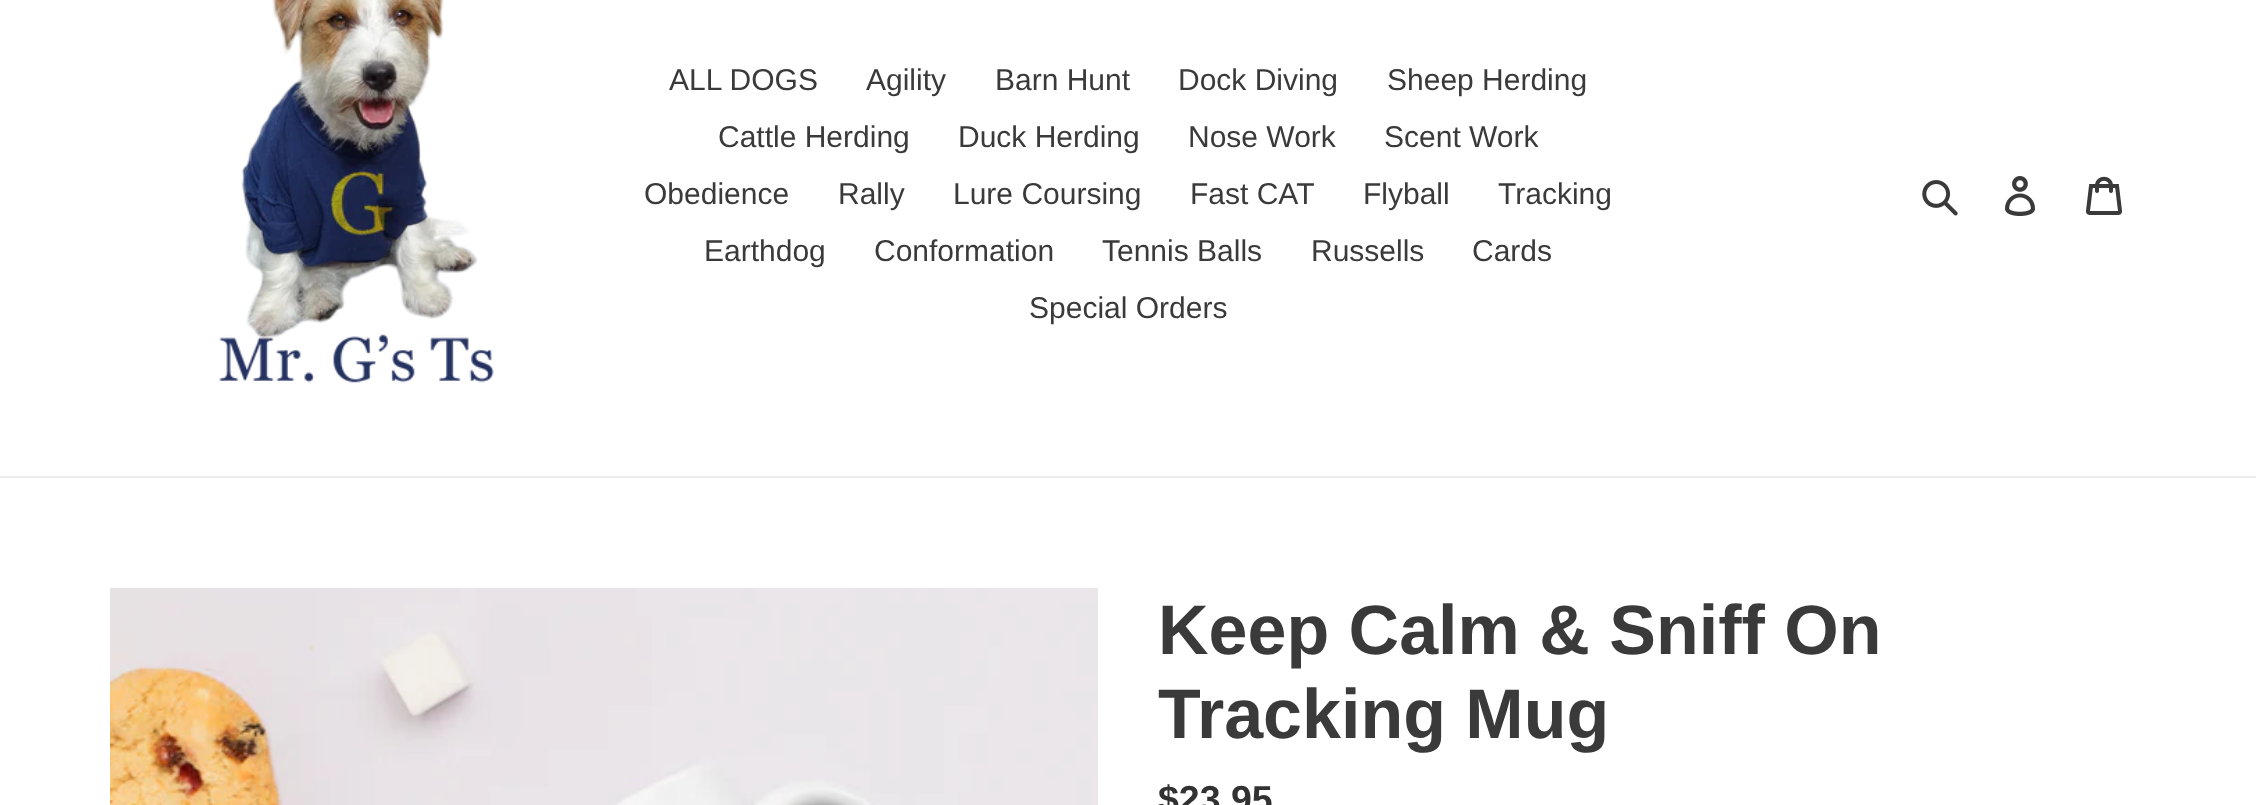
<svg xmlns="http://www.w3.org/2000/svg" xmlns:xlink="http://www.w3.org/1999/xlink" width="2256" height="805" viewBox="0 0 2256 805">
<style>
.cls-1{font:30px Liberation Sans;fill:#3a3a3a}
.cls-2{font:bold 70px Liberation Sans;fill:#3a3a3a}
.cls-3{font:bold 37.5px Liberation Sans;fill:#333232}
</style>
<rect width="100%" height="100%" fill="#ffffff"/>
<rect fill="#ebebeb" x="0" y="476" width="2256" height="2"/>
<image xlink:href="image0.png" x="219" y="0" width="275" height="383"/>
<image xlink:href="image1.png" x="1922" y="180" width="36" height="36"/>
<image xlink:href="image2.png" x="2005" y="176" width="31" height="40"/>
<image xlink:href="image3.png" x="2086" y="176" width="36" height="39"/>
<image xlink:href="image4.png" x="110" y="588" width="988" height="217"/>
<text class="cls-1" x="669" y="90">ALL DOGS</text>
<text class="cls-1" x="866" y="90">Agility</text>
<text class="cls-1" x="995" y="90">Barn Hunt</text>
<text class="cls-1" x="1178" y="90">Dock Diving</text>
<text class="cls-1" x="1387" y="90">Sheep Herding</text>
<text class="cls-1" x="718" y="147">Cattle Herding</text>
<text class="cls-1" x="958" y="147">Duck Herding</text>
<text class="cls-1" x="1188" y="147">Nose Work</text>
<text class="cls-1" x="1384" y="147">Scent Work</text>
<text class="cls-1" x="644" y="204">Obedience</text>
<text class="cls-1" x="838" y="204">Rally</text>
<text class="cls-1" x="953" y="204">Lure Coursing</text>
<text class="cls-1" x="1190" y="204">Fast CAT</text>
<text class="cls-1" x="1363" y="204">Flyball</text>
<text class="cls-1" x="1498" y="204">Tracking</text>
<text class="cls-1" x="704" y="261">Earthdog</text>
<text class="cls-1" x="874" y="261">Conformation</text>
<text class="cls-1" x="1102" y="261">Tennis Balls</text>
<text class="cls-1" x="1311" y="261">Russells</text>
<text class="cls-1" x="1472" y="261">Cards</text>
<text class="cls-1" x="1029" y="318">Special Orders</text>
<text class="cls-2"><tspan x="1158" y="654">Keep Calm &amp; Sniff On</tspan><tspan x="1158" y="738">Tracking Mug</tspan></text>
<text class="cls-3" x="1158" y="812">$23.95</text>
</svg>
